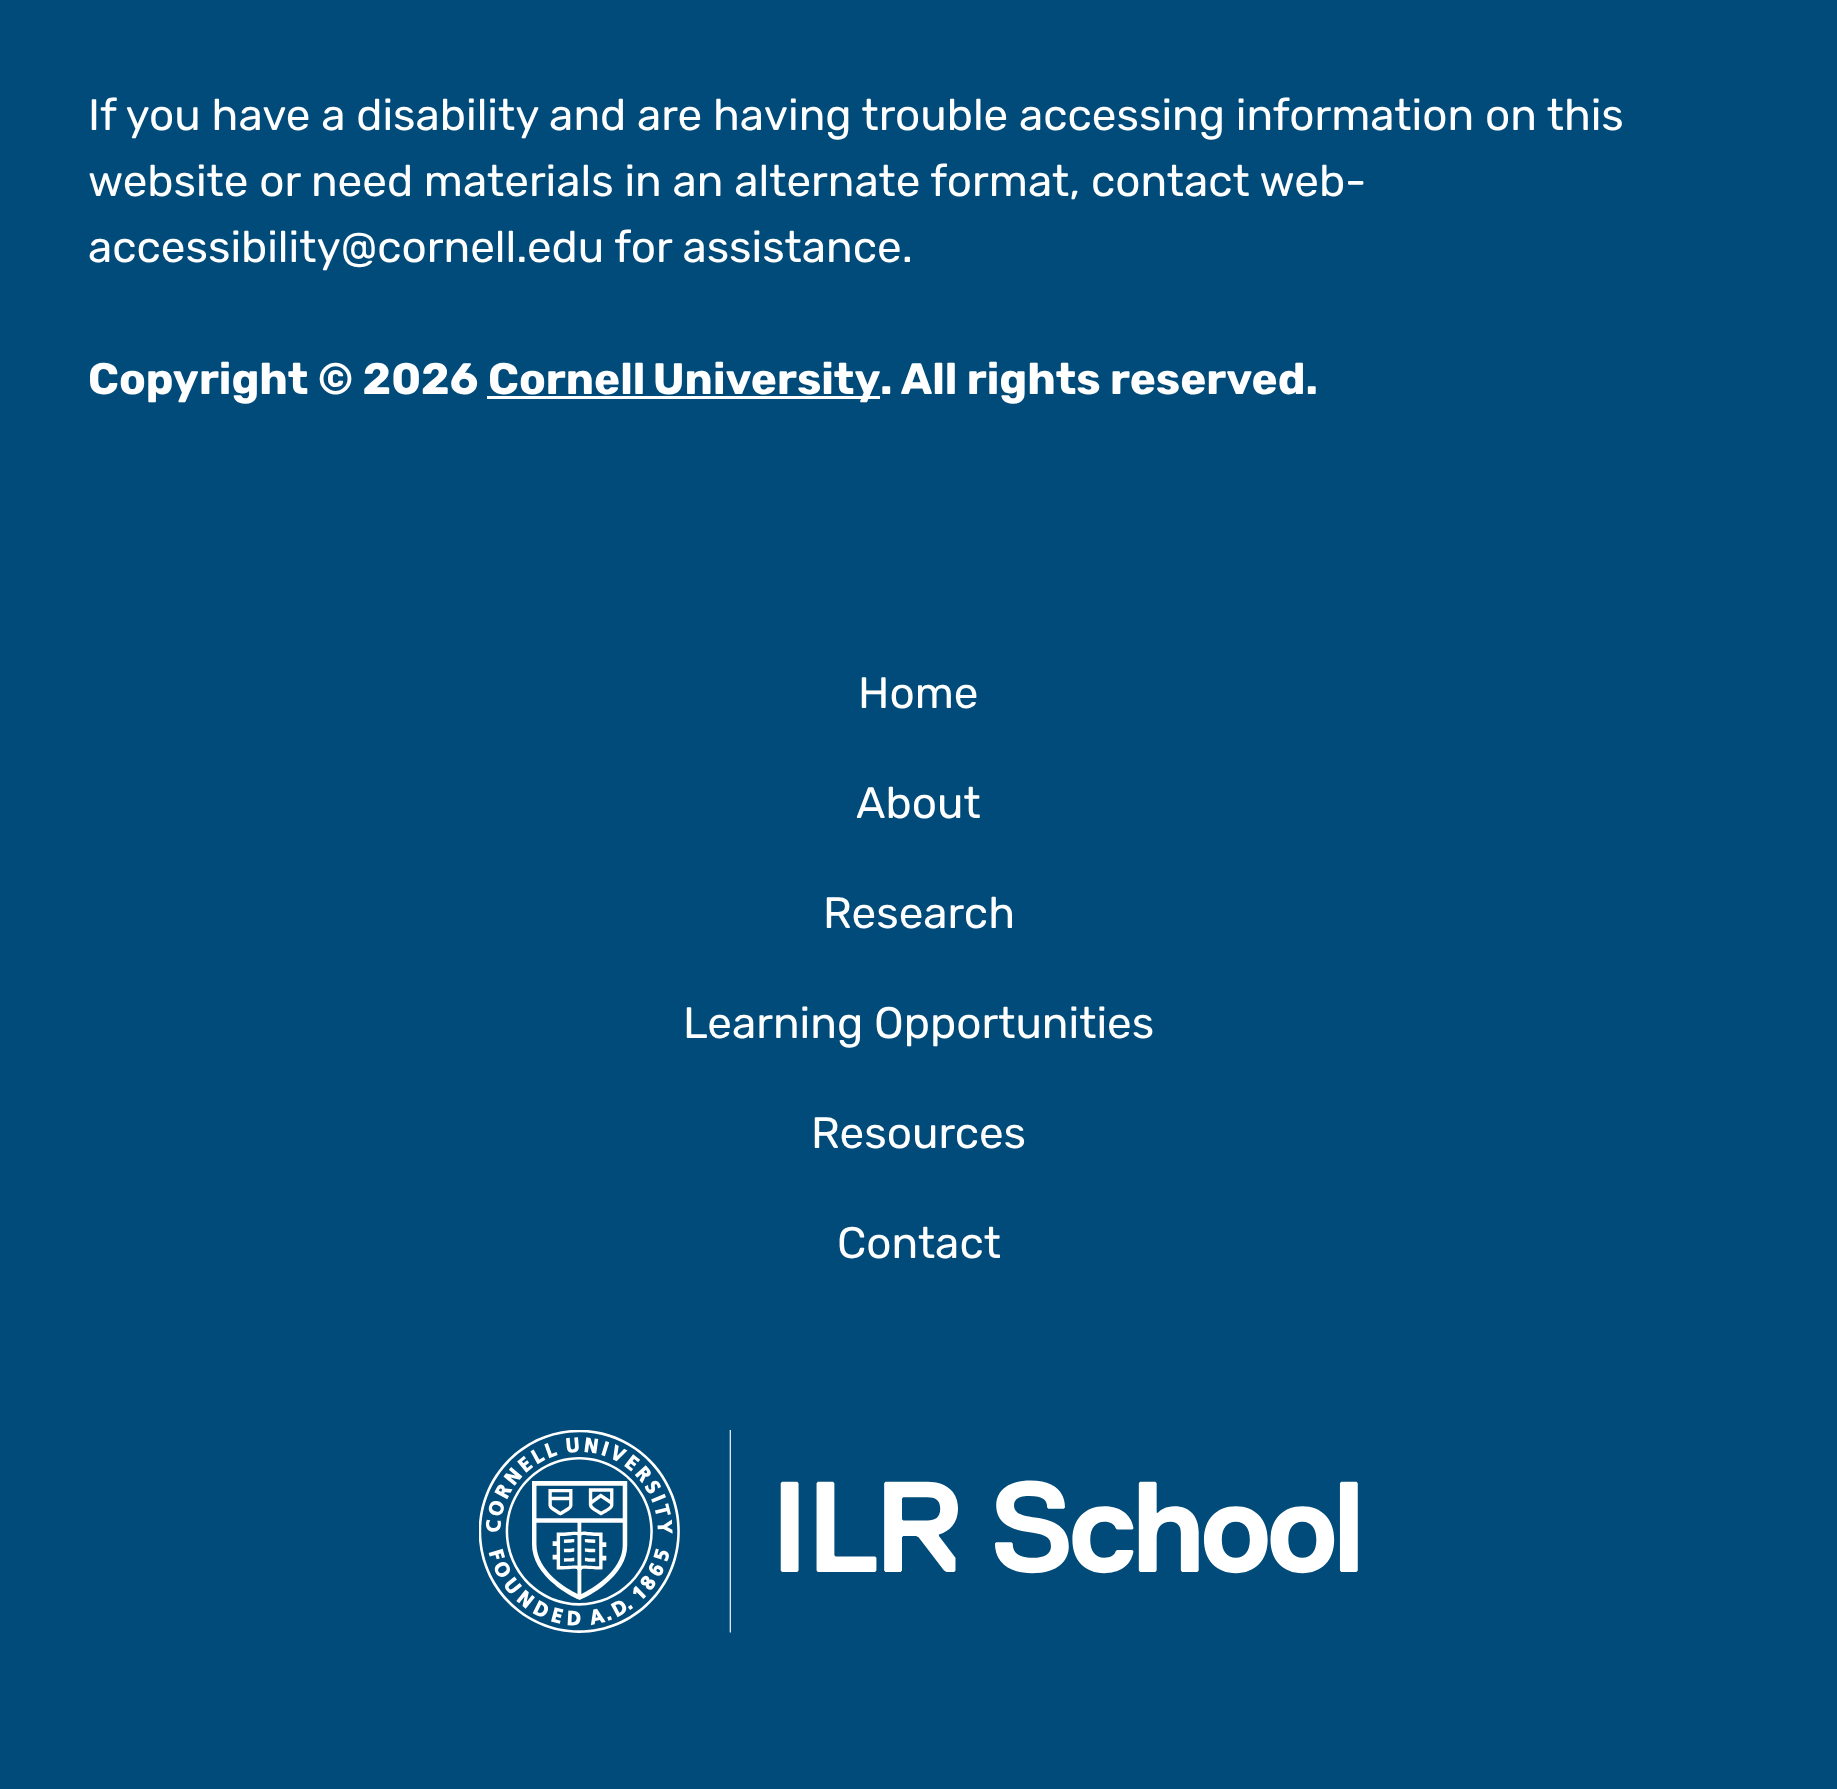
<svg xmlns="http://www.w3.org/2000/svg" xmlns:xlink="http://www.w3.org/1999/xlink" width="1837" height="1789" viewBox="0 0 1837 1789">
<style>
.cls-1{font:44px Rubik;fill:#ffffff}
.cls-2{font:bold 44px Rubik;fill:#ffffff}
</style>
<rect width="100%" height="100%" fill="#004b79"/>
<rect fill="#ffffff" x="487" y="396" width="393" height="3"/>
<image xlink:href="image0.png" x="479" y="1430" width="879" height="203"/>
<text class="cls-1"><tspan x="88" y="130">If you have a disability and are having trouble accessing information on this</tspan><tspan x="88" y="196">website or need materials in an alternate format, contact web-</tspan><tspan x="88" y="262">accessibility@cornell.edu for assistance.</tspan></text>
<text class="cls-2" x="88" y="394">Copyright © 2026</text>
<text class="cls-2" x="488" y="394" word-spacing="-2">Cornell University</text>
<text class="cls-2" x="880" y="394">. All rights reserved.</text>
<text class="cls-1" x="858" y="708">Home</text>
<text class="cls-1" x="856" y="818">About</text>
<text class="cls-1" x="823" y="928">Research</text>
<text class="cls-1" x="683" y="1038">Learning Opportunities</text>
<text class="cls-1" x="811" y="1148">Resources</text>
<text class="cls-1" x="837" y="1258">Contact</text>
</svg>
